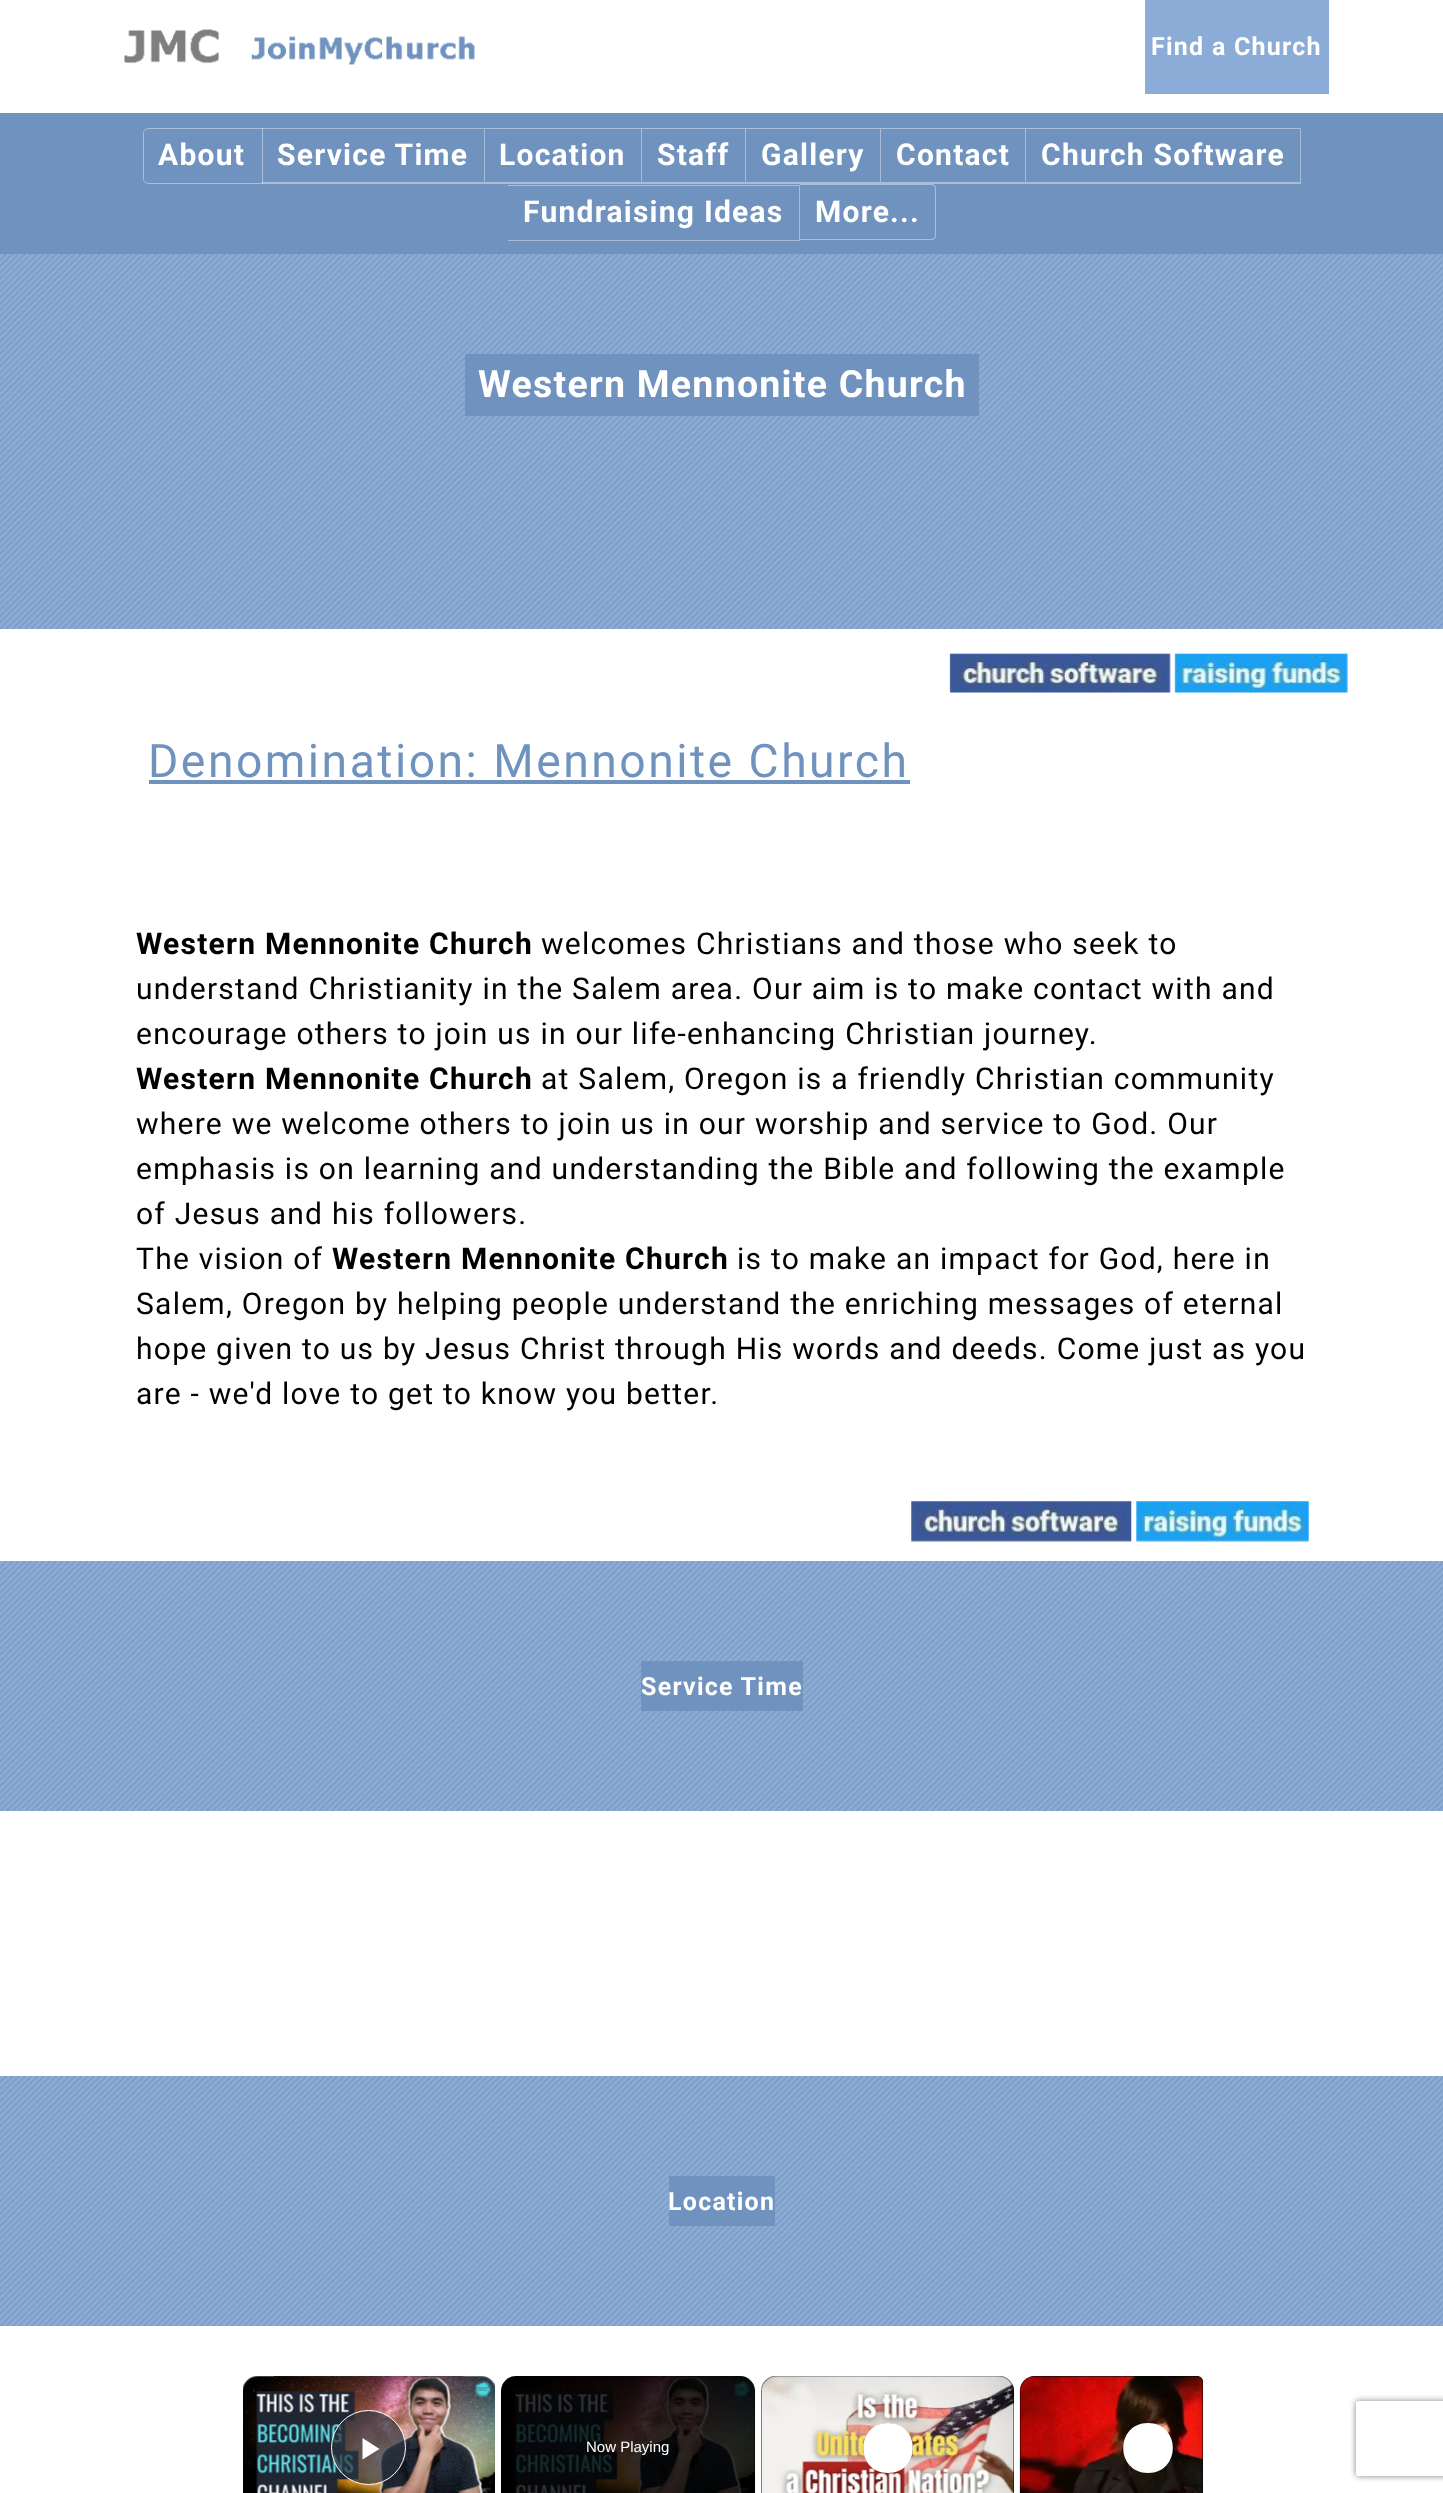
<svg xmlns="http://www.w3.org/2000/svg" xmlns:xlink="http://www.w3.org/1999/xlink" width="1443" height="2493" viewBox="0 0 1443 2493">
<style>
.cls-1{font:bold 25px Roboto;letter-spacing:1.25px;fill:#ffffff}
.cls-2{font:bold 30px Roboto;letter-spacing:1.25px;fill:#ffffff}
.cls-3{font:bold 37.5px Roboto;letter-spacing:1.25px;fill:#ffffff}
.cls-4{font:46.25px Roboto;letter-spacing:2.5px;fill:#7092be}
.cls-5{font:bold 30px Roboto;letter-spacing:1.25px;fill:#000000}
.cls-6{font:30px Roboto;letter-spacing:1.25px;fill:#000000}
.cls-7{font:15px Liberation Sans;fill:#ffffff}
</style>
<defs>
<clipPath id="clip1"><path d="M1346 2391H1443V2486H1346ZM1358.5 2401H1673.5C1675 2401 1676 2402 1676 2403.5V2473.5C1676 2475 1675 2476 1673.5 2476H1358.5C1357 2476 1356 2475 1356 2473.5V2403.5C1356 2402 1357 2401 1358.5 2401Z" clip-rule="evenodd"/></clipPath>
</defs>
<rect width="100%" height="100%" fill="#ffffff"/>
<rect fill="#7092be" x="0" y="113" width="1443" height="141"/>
<image xlink:href="image0.png" x="124" y="29" width="351" height="36"/>
<rect fill="#8bacd6" x="1145" y="0" width="184" height="94"/>
<path fill="none" stroke="#a9bed8" d="M148 128.5H262.5V183.5H148C145.5 183.5 143.5 181.5 143.5 179V133C143.5 130.5 145.5 128.5 148 128.5Z"/>
<path fill="#ffffff" fill-opacity="0.4" d="M262 128H485L484 129H262Z"/>
<path fill="#ffffff" fill-opacity="0.4" d="M485 128V184L484 182V129Z"/>
<path fill="#ffffff" fill-opacity="0.4" d="M485 184H262V182H484Z"/>
<path fill="#a9bed8" d="M485 128H642L641 129H485Z"/>
<path fill="#ffffff" fill-opacity="0.4" d="M642 128V184L641 182V129Z"/>
<path fill="#ffffff" fill-opacity="0.4" d="M642 184H485V182H641Z"/>
<path fill="#a9bed8" d="M642 128H746L745 129H642Z"/>
<path fill="#ffffff" fill-opacity="0.4" d="M746 128V184L745 182V129Z"/>
<path fill="#ffffff" fill-opacity="0.4" d="M746 184H642V182H745Z"/>
<path fill="#a9bed8" d="M746 128H881L880 129H746Z"/>
<path fill="#ffffff" fill-opacity="0.4" d="M881 128V184L880 182V129Z"/>
<path fill="#ffffff" fill-opacity="0.4" d="M881 184H746V182H880Z"/>
<path fill="#a9bed8" d="M881 128H1026L1025 129H881Z"/>
<path fill="#ffffff" fill-opacity="0.4" d="M1026 128V184L1025 182V129Z"/>
<path fill="#ffffff" fill-opacity="0.4" d="M1026 184H881V182H1025Z"/>
<path fill="#a9bed8" d="M1026 128H1301L1300 129H1026Z"/>
<path fill="#ffffff" fill-opacity="0.4" d="M1301 128V184L1300 182V129Z"/>
<path fill="#ffffff" fill-opacity="0.4" d="M1301 184H1026V182H1300Z"/>
<path fill="#a9bed8" d="M508 185H800L799 186H508Z"/>
<path fill="#ffffff" fill-opacity="0.4" d="M800 185V241L799 240V186Z"/>
<path fill="#ffffff" fill-opacity="0.4" d="M800 241H508V240H799Z"/>
<path fill="#a9bed8" fill-rule="evenodd" d="M800 184H931C934 184 936 186 936 189V235C936 238 934 240 931 240H800ZM800 185H931C933 185 935 187 935 189V235C935 237 933 239 931 239H800Z"/>
<rect fill="#8bacd6" x="0" y="254" width="1443" height="375"/>
<image xlink:href="image1.png" x="0" y="254" width="1443" height="375"/>
<rect fill="#7092be" x="465" y="354" width="514" height="62"/>
<image xlink:href="image2.png" x="949" y="653" width="222" height="40"/>
<image xlink:href="image3.png" x="1174" y="653" width="174" height="40"/>
<rect fill="#7092be" x="149" y="780" width="761" height="4"/>
<image xlink:href="image4.png" x="911" y="1501" width="221" height="41"/>
<image xlink:href="image5.png" x="1136" y="1501" width="173" height="41"/>
<rect fill="#8bacd6" x="0" y="1561" width="1443" height="250"/>
<image xlink:href="image6.png" x="0" y="1561" width="1443" height="250"/>
<rect fill="#7092be" x="641" y="1661" width="162" height="50"/>
<rect fill="#8bacd6" x="0" y="2076" width="1443" height="250"/>
<image xlink:href="image6.png" x="0" y="2076" width="1443" height="250"/>
<rect fill="#7092be" x="669" y="2176" width="106" height="50"/>
<image xlink:href="image8.png" x="273" y="2376" width="192" height="1"/>
<image xlink:href="image7.png" x="243" y="2376" width="252" height="117"/>
<circle fill="#2b333f" fill-opacity="0.7" stroke="#ffffff" cx="368.5" cy="2447.5" r="37"/>
<path fill="#ffffff" d="M362.5 2438V2459.5L379.5 2449Z"/>
<rect fill="#000000" x="501" y="2376" width="254" height="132" rx="15"/>
<image xlink:href="image9.png" x="501" y="2376" width="255" height="117"/>
<rect fill="#000000" x="761" y="2376" width="253" height="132" rx="15"/>
<image xlink:href="image10.png" x="761" y="2376" width="254" height="117"/>
<circle fill="#2b333f" fill-opacity="0.7" cx="888" cy="2448" r="25"/>
<path fill="#ffffff" d="M888 2423C855 2423 855 2473 888 2473C921 2473 921 2423 888 2423Z"/>
<path fill="#000000" d="M1035 2376H1197C1200.5 2376 1203 2378.5 1203 2382V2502C1203 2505.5 1200.5 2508 1197 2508H1035C1026.5 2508 1020 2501.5 1020 2493V2391C1020 2382.5 1026.5 2376 1035 2376Z"/>
<image xlink:href="image11.png" x="1019" y="2376" width="184" height="117"/>
<circle fill="#2b333f" fill-opacity="0.7" cx="1148" cy="2448" r="25"/>
<path fill="#ffffff" d="M1148 2423C1115 2423 1115 2473 1148 2473C1181 2473 1181 2423 1148 2423Z"/>
<g clip-path="url(#clip1)">
<rect fill="#808080" filter="blur(3px)" x="1356" y="2401" width="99" height="75" rx="2.5"/>
</g>
<text class="cls-1" x="1151" y="55">Find a Church</text>
<text class="cls-2" x="158" y="165">About</text>
<text class="cls-2" x="277" y="165">Service Time</text>
<text class="cls-2" x="499" y="165">Location</text>
<text class="cls-2" x="657" y="165">Staff</text>
<text class="cls-2" x="761" y="165">Gallery</text>
<text class="cls-2" x="896" y="165">Contact</text>
<text class="cls-2" x="1041" y="165">Church Software</text>
<text class="cls-2" x="523" y="222">Fundraising Ideas</text>
<text class="cls-2" x="815" y="222">More...</text>
<text class="cls-3" x="478" y="397">Western Mennonite Church</text>
<text class="cls-4" x="148" y="777">Denomination: Mennonite Church</text>
<text class="cls-5" x="136" y="954">Western Mennonite Church</text>
<text class="cls-6" x="541" y="954">welcomes Christians and those who seek to</text>
<text class="cls-6"><tspan x="136" y="999">understand Christianity in the Salem area. Our aim is to make contact with and</tspan><tspan x="136" y="1044">encourage others to join us in our life-enhancing Christian journey.</tspan></text>
<text class="cls-5" x="136" y="1089">Western Mennonite Church</text>
<text class="cls-6" x="541" y="1089">at Salem, Oregon is a friendly Christian community</text>
<text class="cls-6"><tspan x="136" y="1134">where we welcome others to join us in our worship and service to God. Our</tspan><tspan x="136" y="1179">emphasis is on learning and understanding the Bible and following the example</tspan><tspan x="136" y="1224">of Jesus and his followers.</tspan><tspan x="136" y="1269">The vision of</tspan></text>
<text class="cls-5" x="332" y="1269">Western Mennonite Church</text>
<text class="cls-6" x="737" y="1269">is to make an impact for God, here in</text>
<text class="cls-6"><tspan x="136" y="1314">Salem, Oregon by helping people understand the enriching messages of eternal</tspan><tspan x="136" y="1359">hope given to us by Jesus Christ through His words and deeds. Come just as you</tspan><tspan x="136" y="1404">are - we'd love to get to know you better.</tspan></text>
<text class="cls-1" x="641" y="1695">Service Time</text>
<text class="cls-1" x="668" y="2210">Location</text>
<text class="cls-7" x="586" y="2452">Now Playing</text>
</svg>
